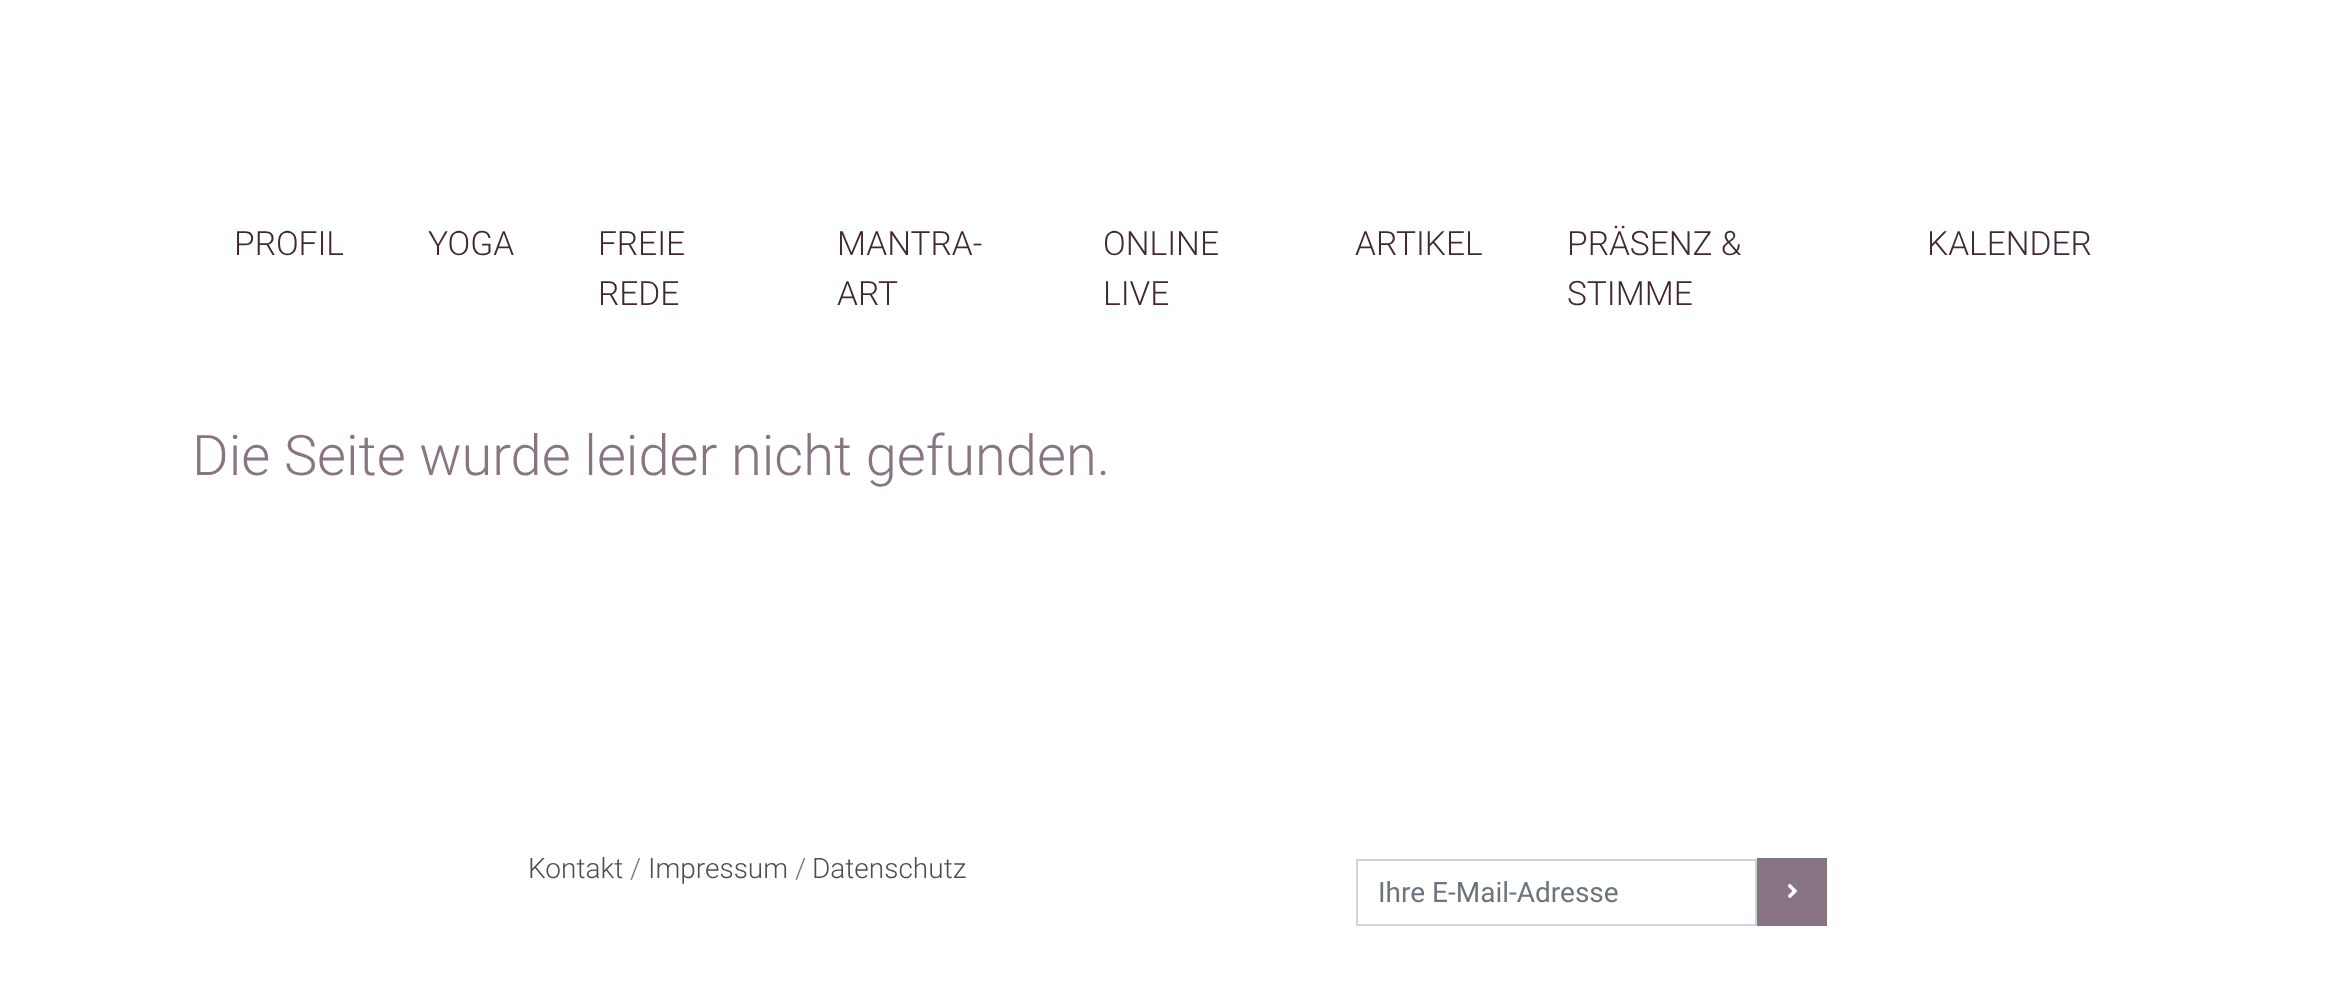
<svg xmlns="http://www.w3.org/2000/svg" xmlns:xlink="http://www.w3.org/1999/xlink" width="2325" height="1002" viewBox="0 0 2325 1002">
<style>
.cls-1{font:300 33.5px Roboto;fill:#422834}
.cls-2{font:300 56px Roboto;fill:#887483}
.cls-3{font:300 28px Roboto;fill:#4d4d4d}
.cls-4{font:300 28px Roboto;fill:#88737d}
.cls-5{font:28px Roboto;fill:#6c757d}
</style>
<rect width="100%" height="100%" fill="#ffffff"/>
<rect fill="none" stroke="#ced4da" stroke-width="2" x="1357" y="860" width="399" height="65"/>
<rect fill="#887483" x="1757" y="858" width="70" height="68"/>
<image xlink:href="image0.png" x="1787" y="883" width="10" height="15"/>
<text class="cls-1" x="234" y="255">PROFIL</text>
<text class="cls-1" x="428" y="255">YOGA</text>
<text class="cls-1"><tspan x="598" y="255">FREIE</tspan><tspan x="598" y="305">REDE</tspan></text>
<text class="cls-1"><tspan x="837" y="255">MANTRA-</tspan><tspan x="837" y="305">ART</tspan></text>
<text class="cls-1"><tspan x="1103" y="255">ONLINE</tspan><tspan x="1103" y="305">LIVE</tspan></text>
<text class="cls-1" x="1355" y="255">ARTIKEL</text>
<text class="cls-1"><tspan x="1567" y="255">PRÄSENZ &amp;</tspan><tspan x="1567" y="305">STIMME</tspan></text>
<text class="cls-1" x="1927" y="255">KALENDER</text>
<text class="cls-2" x="192" y="475">Die Seite wurde leider nicht gefunden.</text>
<text class="cls-3" x="528" y="878">Kontakt</text>
<text class="cls-4" x="630" y="878">/</text>
<text class="cls-3" x="648" y="878">Impressum</text>
<text class="cls-4" x="795" y="878">/</text>
<text class="cls-3" x="812" y="878">Datenschutz</text>
<text class="cls-5" x="1378" y="902">Ihre E-Mail-Adresse</text>
</svg>
